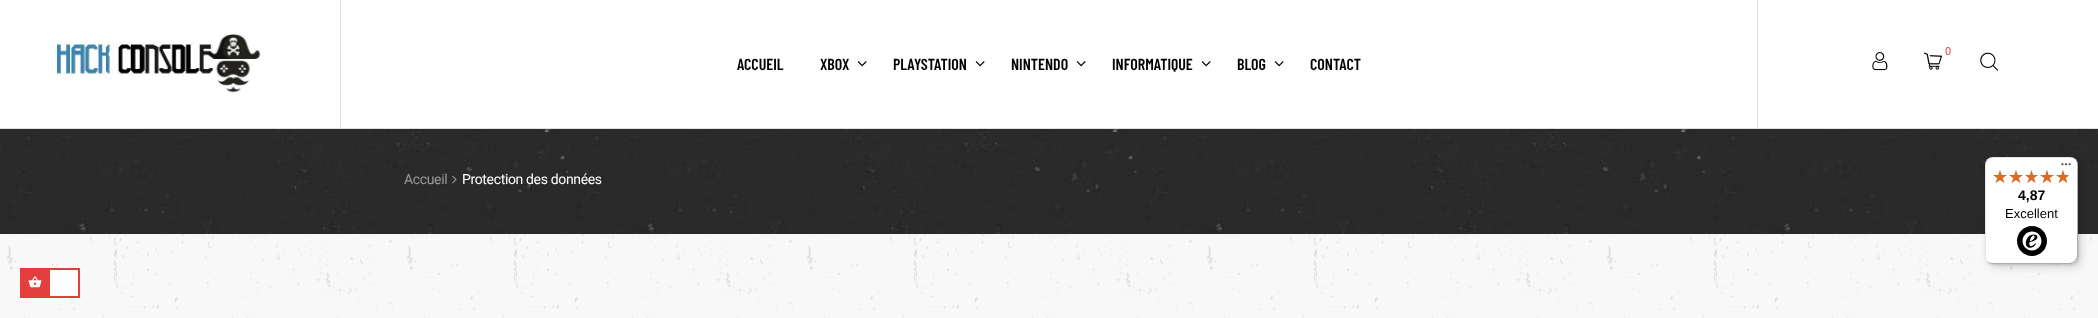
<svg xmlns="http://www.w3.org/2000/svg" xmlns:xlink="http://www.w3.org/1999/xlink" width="2098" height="318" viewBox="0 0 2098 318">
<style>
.cls-1{font:11px Roboto;fill:#e33d3d}
.cls-2{font:600 16px Barlow Condensed;fill:#000000}
.cls-3{font:14px Roboto;letter-spacing:-0.35px;fill:#999999}
.cls-4{font:14px Roboto;letter-spacing:-0.35px;fill:#ffffff}
.cls-5{font:bold 14px Liberation Sans;fill:#000000}
.cls-6{font:13px Liberation Sans;fill:#000000}
</style>
<rect width="100%" height="100%" fill="#f8f8f8"/>
<image xlink:href="image0.png" x="0" y="234" width="2092" height="84"/>
<rect fill="#ffffff" x="0" y="0" width="2098" height="128"/>
<rect fill="#e0e0e0" x="0" y="128" width="2098" height="1"/>
<image xlink:href="image1.png" x="57" y="34" width="204" height="59"/>
<image xlink:href="image2.png" x="1872" y="52" width="16" height="19"/>
<image xlink:href="image3.png" x="1924" y="52" width="18" height="18"/>
<image xlink:href="image4.png" x="1980" y="52" width="19" height="19"/>
<rect fill="#e0e0e0" x="1757" y="0" width="1" height="128"/>
<rect fill="#e0e0e0" x="340" y="0" width="1" height="128"/>
<image xlink:href="image5.png" x="857" y="61" width="10" height="6"/>
<image xlink:href="image5.png" x="975" y="61" width="10" height="6"/>
<image xlink:href="image5.png" x="1076" y="61" width="10" height="6"/>
<image xlink:href="image5.png" x="1201" y="61" width="10" height="6"/>
<image xlink:href="image5.png" x="1274" y="61" width="10" height="6"/>
<image xlink:href="image6.png" x="0" y="129" width="2098" height="105"/>
<image xlink:href="image7.png" x="452" y="175" width="5" height="9"/>
<rect fill="#000000" fill-opacity="0.15" filter="blur(4px)" x="1988" y="160" width="93" height="107" rx="8"/>
<rect fill="#000000" fill-opacity="0.15" filter="blur(1px)" x="1986" y="158" width="93" height="107" rx="8"/>
<rect fill="#ffffff" x="1985" y="157" width="93" height="107" rx="8"/>
<path fill="#000000" fill-opacity="0.1" d="M1994 158H2071C2073 158 2075 159 2077 161C2075 159 2073 157 2070 157H1993C1989 157 1985 161 1985 165V256C1985 259 1987 261 1989 263C1987 261 1986 259 1986 257V166C1986 162 1990 158 1994 158Z"/>
<path fill="#000000" fill-opacity="0.2" d="M1986 260C1988 262 1990 264 1993 264H2070C2074 264 2078 260 2078 256V165C2078 162 2076 160 2074 158C2076 160 2077 162 2077 164V255C2077 259 2073 263 2069 263H1992C1990 263 1988 262 1986 260Z"/>
<path fill="#323232" fill-opacity="0.2" d="M1987 261C1988 263 1991 264 1993 264H2070C2074 264 2078 260 2078 256V165C2078 163 2077 160 2075 159C2076 160 2077 162 2077 164V255C2077 260 2074 263 2069 263H1992C1990 263 1988 262 1987 261Z"/>
<image xlink:href="image8.png" x="2061" y="163" width="10" height="3"/>
<path fill="#ffffff" fill-opacity="0.3" d="M2070 264C2074.5 264 2078 260.5 2078 256C2078 260 2074 264 2070 264Z"/>
<image xlink:href="image9.png" x="1993" y="170" width="14" height="13"/>
<image xlink:href="image9.png" x="2009" y="170" width="14" height="13"/>
<image xlink:href="image10.png" x="2025" y="170" width="13" height="13"/>
<image xlink:href="image9.png" x="2040" y="170" width="14" height="13"/>
<image xlink:href="image9.png" x="2056" y="170" width="14" height="13"/>
<image xlink:href="image11.png" x="1993" y="170" width="14" height="13"/>
<image xlink:href="image11.png" x="2009" y="170" width="14" height="13"/>
<image xlink:href="image12.png" x="2025" y="170" width="13" height="13"/>
<image xlink:href="image11.png" x="2040" y="170" width="14" height="13"/>
<image xlink:href="image13.png" x="2056" y="170" width="12" height="13"/>
<image xlink:href="image14.png" x="2017" y="226" width="30" height="30"/>
<rect fill="#e33d3d" x="20" y="268" width="30" height="30"/>
<image xlink:href="image15.png" x="28" y="276" width="14" height="12"/>
<rect fill="#ffffff" x="50" y="270" width="28" height="26"/>
<rect fill="#e33d3d" x="50" y="268" width="30" height="2"/>
<rect fill="#e33d3d" x="78" y="268" width="2" height="30"/>
<rect fill="#e33d3d" x="50" y="296" width="30" height="2"/>
<text class="cls-1" x="1945" y="55">0</text>
<text class="cls-2" x="737" y="70">ACCUEIL</text>
<text class="cls-2" x="820" y="70">XBOX</text>
<text class="cls-2" x="893" y="70">PLAYSTATION</text>
<text class="cls-2" x="1011" y="70">NINTENDO</text>
<text class="cls-2" x="1112" y="70">INFORMATIQUE</text>
<text class="cls-2" x="1237" y="70">BLOG</text>
<text class="cls-2" x="1310" y="70">CONTACT</text>
<text class="cls-3" x="404" y="184">Accueil</text>
<text class="cls-4" x="462" y="184">Protection des données</text>
<text class="cls-5" x="2018" y="200">4,87</text>
<text class="cls-6" x="2005" y="218">Excellent</text>
</svg>
